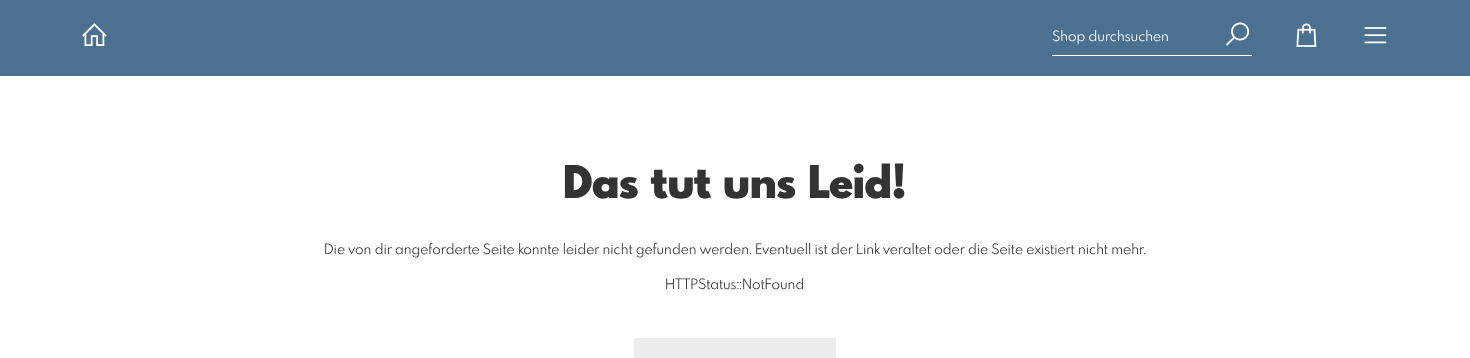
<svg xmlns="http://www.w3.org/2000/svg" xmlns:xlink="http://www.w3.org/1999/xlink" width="1470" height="358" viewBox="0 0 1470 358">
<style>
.cls-1{font:14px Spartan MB;fill:#ffffff}
.cls-2{font:900 44px Spartan MB;fill:#333333}
.cls-3{font:14px Spartan MB;fill:#333333}
</style>
<rect width="100%" height="100%" fill="#ffffff"/>
<rect fill="#4c7190" x="0" y="0" width="1470" height="76"/>
<image xlink:href="image0.png" x="82" y="23" width="25" height="23"/>
<rect fill="#ffffff" x="1052" y="55" width="200" height="1"/>
<image xlink:href="image1.png" x="1226" y="22" width="24" height="24"/>
<image xlink:href="image2.png" x="1296" y="23" width="21" height="24"/>
<image xlink:href="image3.png" x="1364" y="27" width="23" height="17"/>
<rect fill="#ededed" x="634" y="338" width="202" height="20"/>
<text class="cls-1" x="1052" y="41">Shop durchsuchen</text>
<text class="cls-2" x="563" y="198">Das tut uns Leid!</text>
<text class="cls-3" x="324" y="254">Die von dir angeforderte Seite konnte leider nicht gefunden werden. Eventuell ist der Link veraltet oder die Seite existiert nicht mehr.</text>
<text class="cls-3" x="665" y="289">HTTPStatus::NotFound</text>
</svg>
